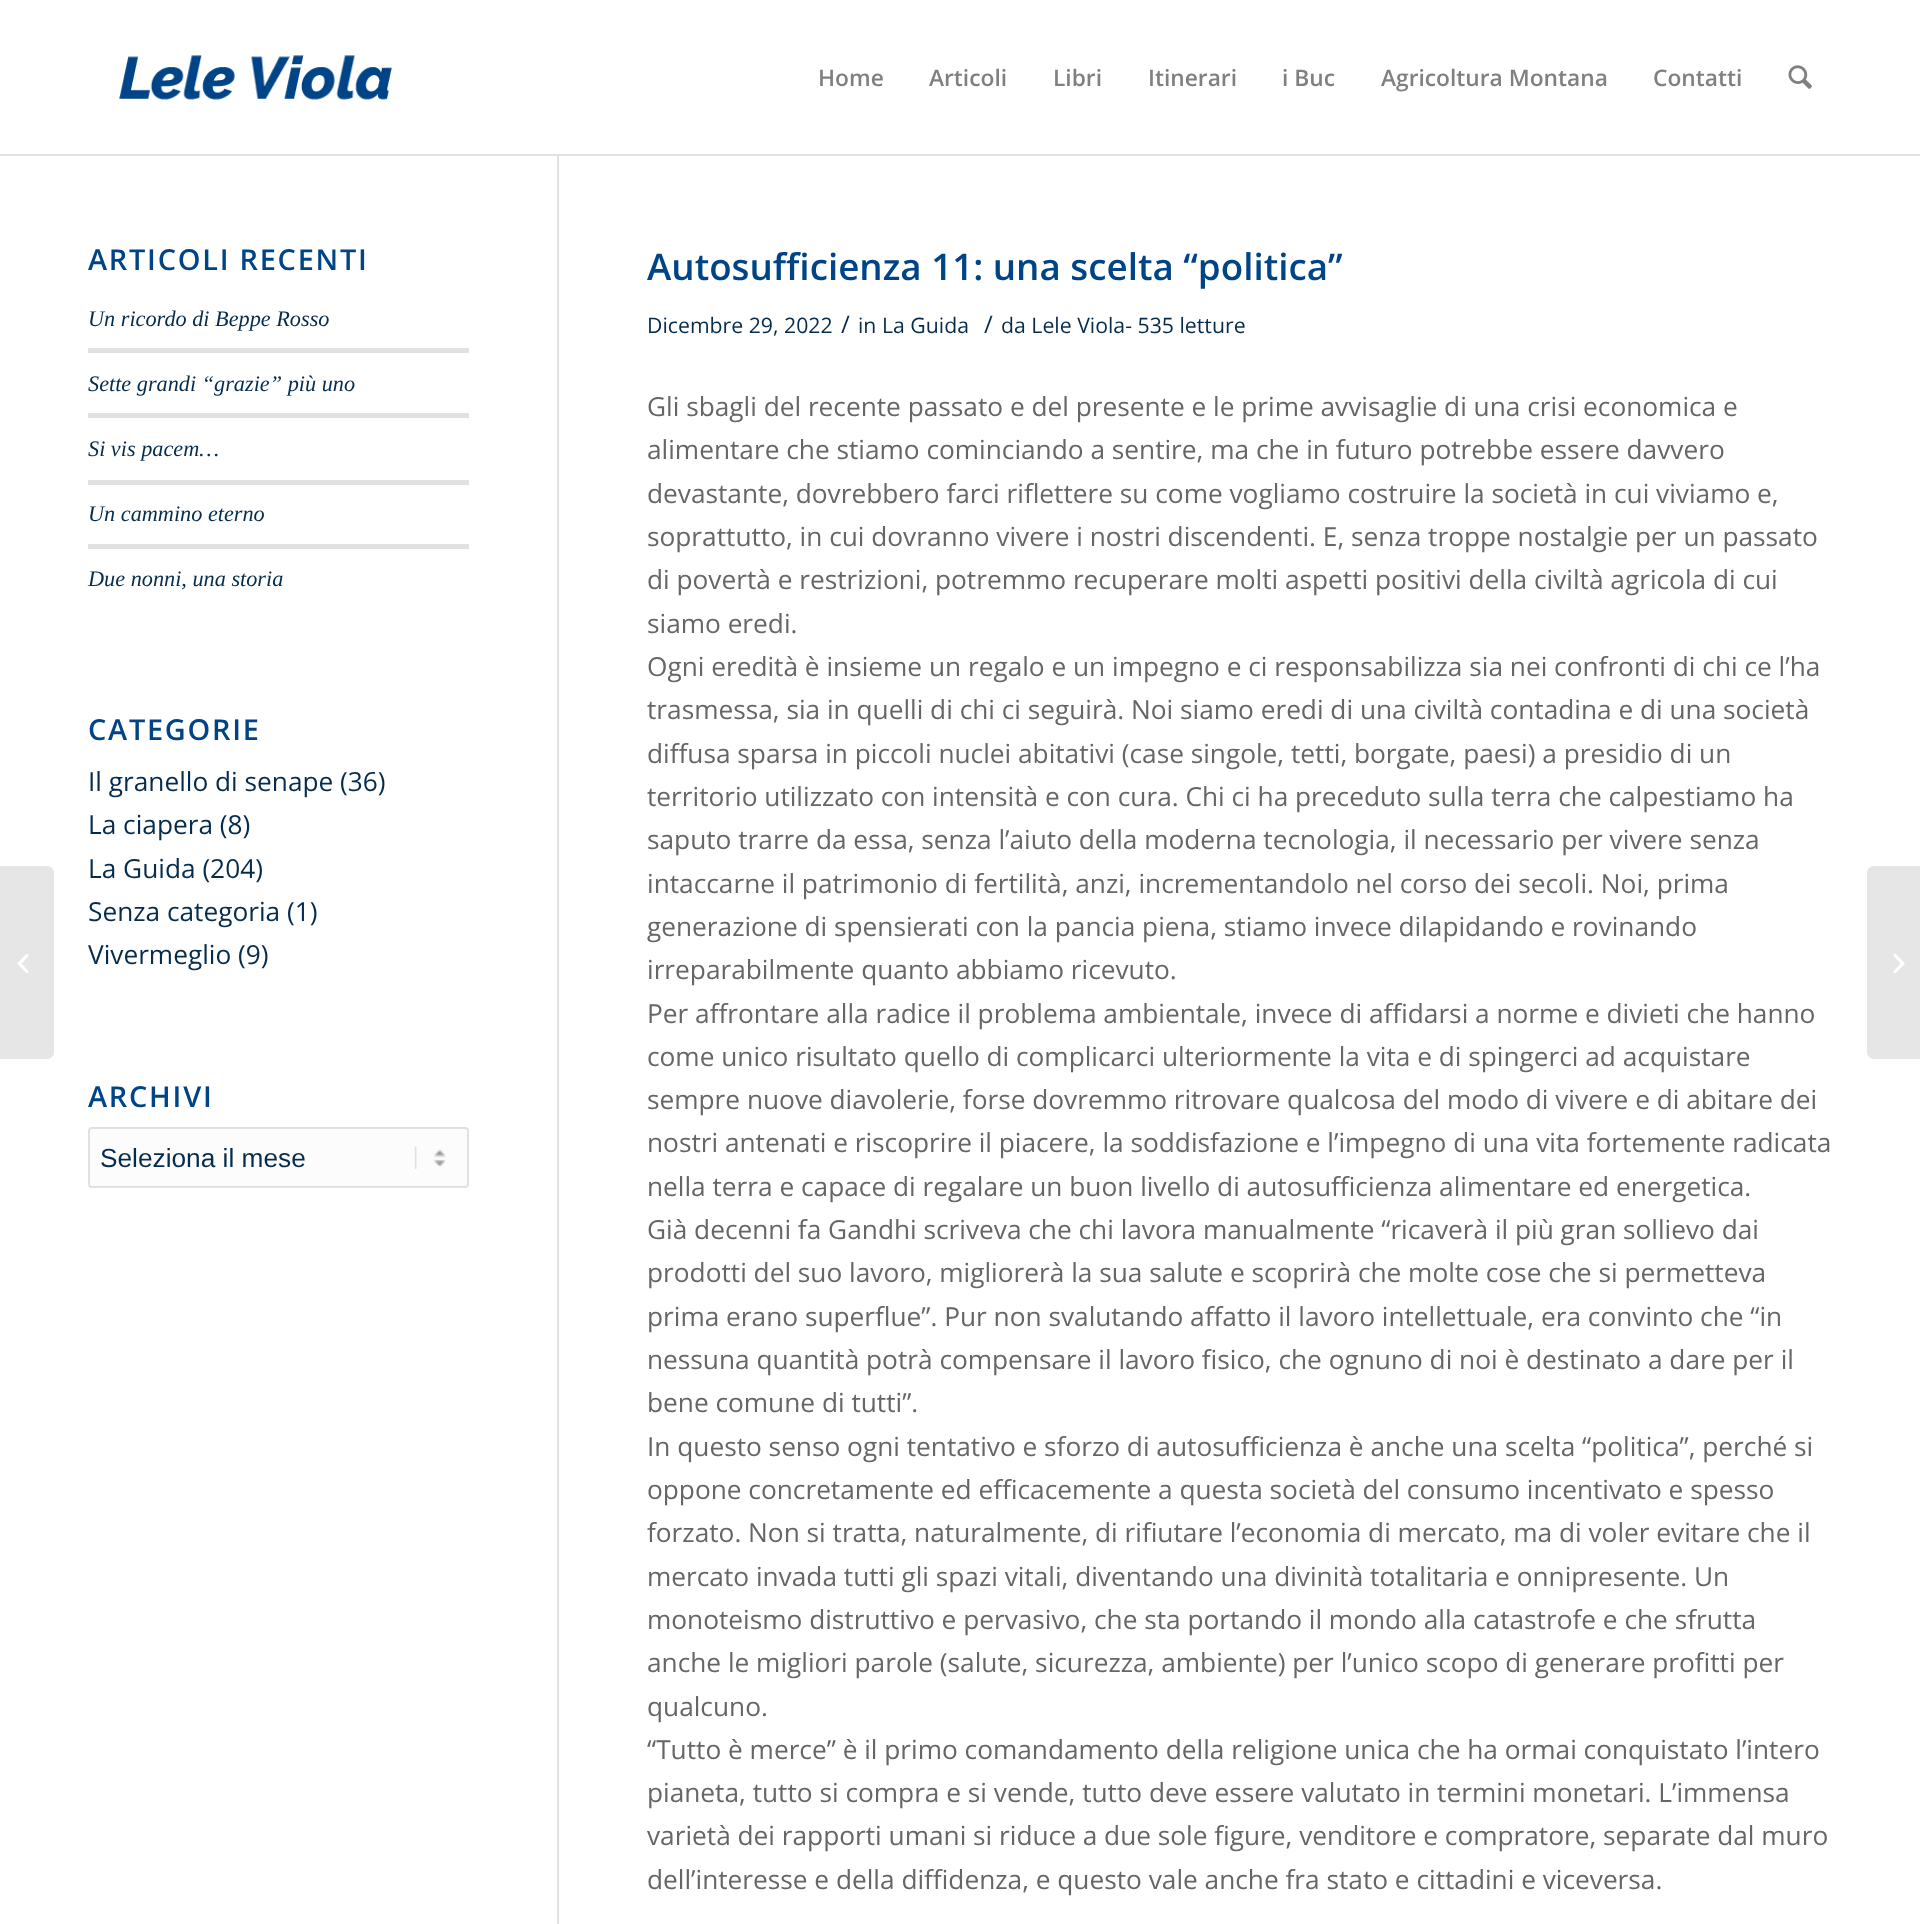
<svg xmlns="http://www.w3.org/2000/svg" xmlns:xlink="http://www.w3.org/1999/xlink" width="1920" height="1924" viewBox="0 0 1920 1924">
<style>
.cls-1{font:600 22.75px Open Sans;fill:#808080}
.cls-2{font:600 28.9px Open Sans;letter-spacing:1.75px;fill:#004488}
.cls-3{font:italic 22.25px Liberation Serif;fill:#062c4d}
.cls-4{font:26.25px Open Sans;fill:#062c4d}
.cls-5{font:26.25px Liberation Sans;fill:#062c4d}
.cls-6{font:600 36.75px Open Sans;fill:#004488}
.cls-7{font:21.25px Open Sans;fill:#062c4d}
.cls-8{font:24px Open Sans;fill:#062c4d}
.cls-9{font:26.25px Open Sans;fill:#666666}
</style>
<rect width="100%" height="100%" fill="#ffffff"/>
<rect fill="#e1e1e1" x="0" y="154" width="1920" height="2"/>
<image xlink:href="image0.png" x="119" y="55" width="273" height="45"/>
<image xlink:href="image1.png" x="1788" y="65" width="24" height="24"/>
<path fill="#e6e6e6" d="M0 866H47C51 866 54 869 54 873V1052C54 1056 51 1059 47 1059H0Z"/>
<image xlink:href="image2.png" x="17" y="954" width="12" height="19"/>
<rect fill="#e1e1e1" x="88" y="348" width="381" height="5"/>
<rect fill="#e1e1e1" x="88" y="413" width="381" height="5"/>
<rect fill="#e1e1e1" x="88" y="480" width="381" height="5"/>
<rect fill="#e1e1e1" x="88" y="544" width="381" height="5"/>
<rect fill="#fcfcfc" x="88" y="1127" width="381" height="61" rx="4"/>
<image xlink:href="image3.png" x="414" y="1146" width="32" height="23"/>
<rect fill="none" stroke="#e1e1e1" stroke-width="2" x="89" y="1128" width="379" height="59" rx="3"/>
<rect fill="#e1e1e1" x="557" y="156" width="2" height="1768"/>
<path fill="#e6e6e6" d="M1874 866H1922V1059H1874C1870 1059 1867 1056 1867 1052V873C1867 869 1870 866 1874 866Z"/>
<image xlink:href="image4.png" x="1893" y="954" width="12" height="19"/>
<text class="cls-1" x="818" y="86">Home</text>
<text class="cls-1" x="929" y="86">Articoli</text>
<text class="cls-1" x="1053" y="86">Libri</text>
<text class="cls-1" x="1148" y="86">Itinerari</text>
<text class="cls-1" x="1282" y="86">i Buc</text>
<text class="cls-1" x="1381" y="86">Agricoltura Montana</text>
<text class="cls-1" x="1653" y="86">Contatti</text>
<text class="cls-2" x="88" y="270">ARTICOLI RECENTI</text>
<text class="cls-3" x="88" y="326">Un ricordo di Beppe Rosso</text>
<text class="cls-3" x="88" y="391">Sette grandi “grazie” più uno</text>
<text class="cls-3" x="88" y="456">Si vis pacem…</text>
<text class="cls-3" x="88" y="521">Un cammino eterno</text>
<text class="cls-3" x="88" y="586">Due nonni, una storia</text>
<text class="cls-2" x="88" y="740">CATEGORIE</text>
<text class="cls-4"><tspan x="88" y="791">Il granello di senape (36)</tspan><tspan x="88" y="834">La ciapera (8)</tspan><tspan x="88" y="878">La Guida (204)</tspan><tspan x="88" y="921">Senza categoria (1)</tspan><tspan x="88" y="964">Vivermeglio (9)</tspan></text>
<text class="cls-2" x="88" y="1107">ARCHIVI</text>
<text class="cls-5" x="100" y="1167">Seleziona il mese</text>
<text class="cls-6" x="647" y="280">Autosufficienza 11: una scelta “politica”</text>
<text class="cls-7" x="647" y="333">Dicembre 29, 2022</text>
<text class="cls-8" x="841" y="333">/</text>
<text class="cls-7" x="858" y="333">in La Guida</text>
<text class="cls-8" x="984" y="333">/</text>
<text class="cls-7" x="1001" y="333">da Lele Viola- 535 letture</text>
<text class="cls-9"><tspan x="647" y="416">Gli sbagli del recente passato e del presente e le prime avvisaglie di una crisi economica e</tspan><tspan x="647" y="459">alimentare che stiamo cominciando a sentire, ma che in futuro potrebbe essere davvero</tspan><tspan x="647" y="503">devastante, dovrebbero farci riflettere su come vogliamo costruire la società in cui viviamo e,</tspan><tspan x="647" y="546">soprattutto, in cui dovranno vivere i nostri discendenti. E, senza troppe nostalgie per un passato</tspan><tspan x="647" y="589">di povertà e restrizioni, potremmo recuperare molti aspetti positivi della civiltà agricola di cui</tspan><tspan x="647" y="633">siamo eredi.</tspan><tspan x="647" y="676">Ogni eredità è insieme un regalo e un impegno e ci responsabilizza sia nei confronti di chi ce l’ha</tspan><tspan x="647" y="719">trasmessa, sia in quelli di chi ci seguirà. Noi siamo eredi di una civiltà contadina e di una società</tspan><tspan x="647" y="763">diffusa sparsa in piccoli nuclei abitativi (case singole, tetti, borgate, paesi) a presidio di un</tspan><tspan x="647" y="806">territorio utilizzato con intensità e con cura. Chi ci ha preceduto sulla terra che calpestiamo ha</tspan><tspan x="647" y="849">saputo trarre da essa, senza l’aiuto della moderna tecnologia, il necessario per vivere senza</tspan><tspan x="647" y="893">intaccarne il patrimonio di fertilità, anzi, incrementandolo nel corso dei secoli. Noi, prima</tspan><tspan x="647" y="936">generazione di spensierati con la pancia piena, stiamo invece dilapidando e rovinando</tspan><tspan x="647" y="979">irreparabilmente quanto abbiamo ricevuto.</tspan><tspan x="647" y="1023">Per affrontare alla radice il problema ambientale, invece di affidarsi a norme e divieti che hanno</tspan><tspan x="647" y="1066">come unico risultato quello di complicarci ulteriormente la vita e di spingerci ad acquistare</tspan><tspan x="647" y="1109">sempre nuove diavolerie, forse dovremmo ritrovare qualcosa del modo di vivere e di abitare dei</tspan><tspan x="647" y="1152">nostri antenati e riscoprire il piacere, la soddisfazione e l’impegno di una vita fortemente radicata</tspan><tspan x="647" y="1196">nella terra e capace di regalare un buon livello di autosufficienza alimentare ed energetica.</tspan><tspan x="647" y="1239">Già decenni fa Gandhi scriveva che chi lavora manualmente “ricaverà il più gran sollievo dai</tspan><tspan x="647" y="1282">prodotti del suo lavoro, migliorerà la sua salute e scoprirà che molte cose che si permetteva</tspan><tspan x="647" y="1326">prima erano superflue”. Pur non svalutando affatto il lavoro intellettuale, era convinto che “in</tspan><tspan x="647" y="1369">nessuna quantità potrà compensare il lavoro fisico, che ognuno di noi è destinato a dare per il</tspan><tspan x="647" y="1412">bene comune di tutti”.</tspan><tspan x="647" y="1456">In questo senso ogni tentativo e sforzo di autosufficienza è anche una scelta “politica”, perché si</tspan><tspan x="647" y="1499">oppone concretamente ed efficacemente a questa società del consumo incentivato e spesso</tspan><tspan x="647" y="1542">forzato. Non si tratta, naturalmente, di rifiutare l’economia di mercato, ma di voler evitare che il</tspan><tspan x="647" y="1586">mercato invada tutti gli spazi vitali, diventando una divinità totalitaria e onnipresente. Un</tspan><tspan x="647" y="1629">monoteismo distruttivo e pervasivo, che sta portando il mondo alla catastrofe e che sfrutta</tspan><tspan x="647" y="1672">anche le migliori parole (salute, sicurezza, ambiente) per l’unico scopo di generare profitti per</tspan><tspan x="647" y="1716">qualcuno.</tspan><tspan x="647" y="1759">“Tutto è merce” è il primo comandamento della religione unica che ha ormai conquistato l’intero</tspan><tspan x="647" y="1802">pianeta, tutto si compra e si vende, tutto deve essere valutato in termini monetari. L’immensa</tspan><tspan x="647" y="1845">varietà dei rapporti umani si riduce a due sole figure, venditore e compratore, separate dal muro</tspan><tspan x="647" y="1889">dell’interesse e della diffidenza, e questo vale anche fra stato e cittadini e viceversa.</tspan></text>
</svg>
